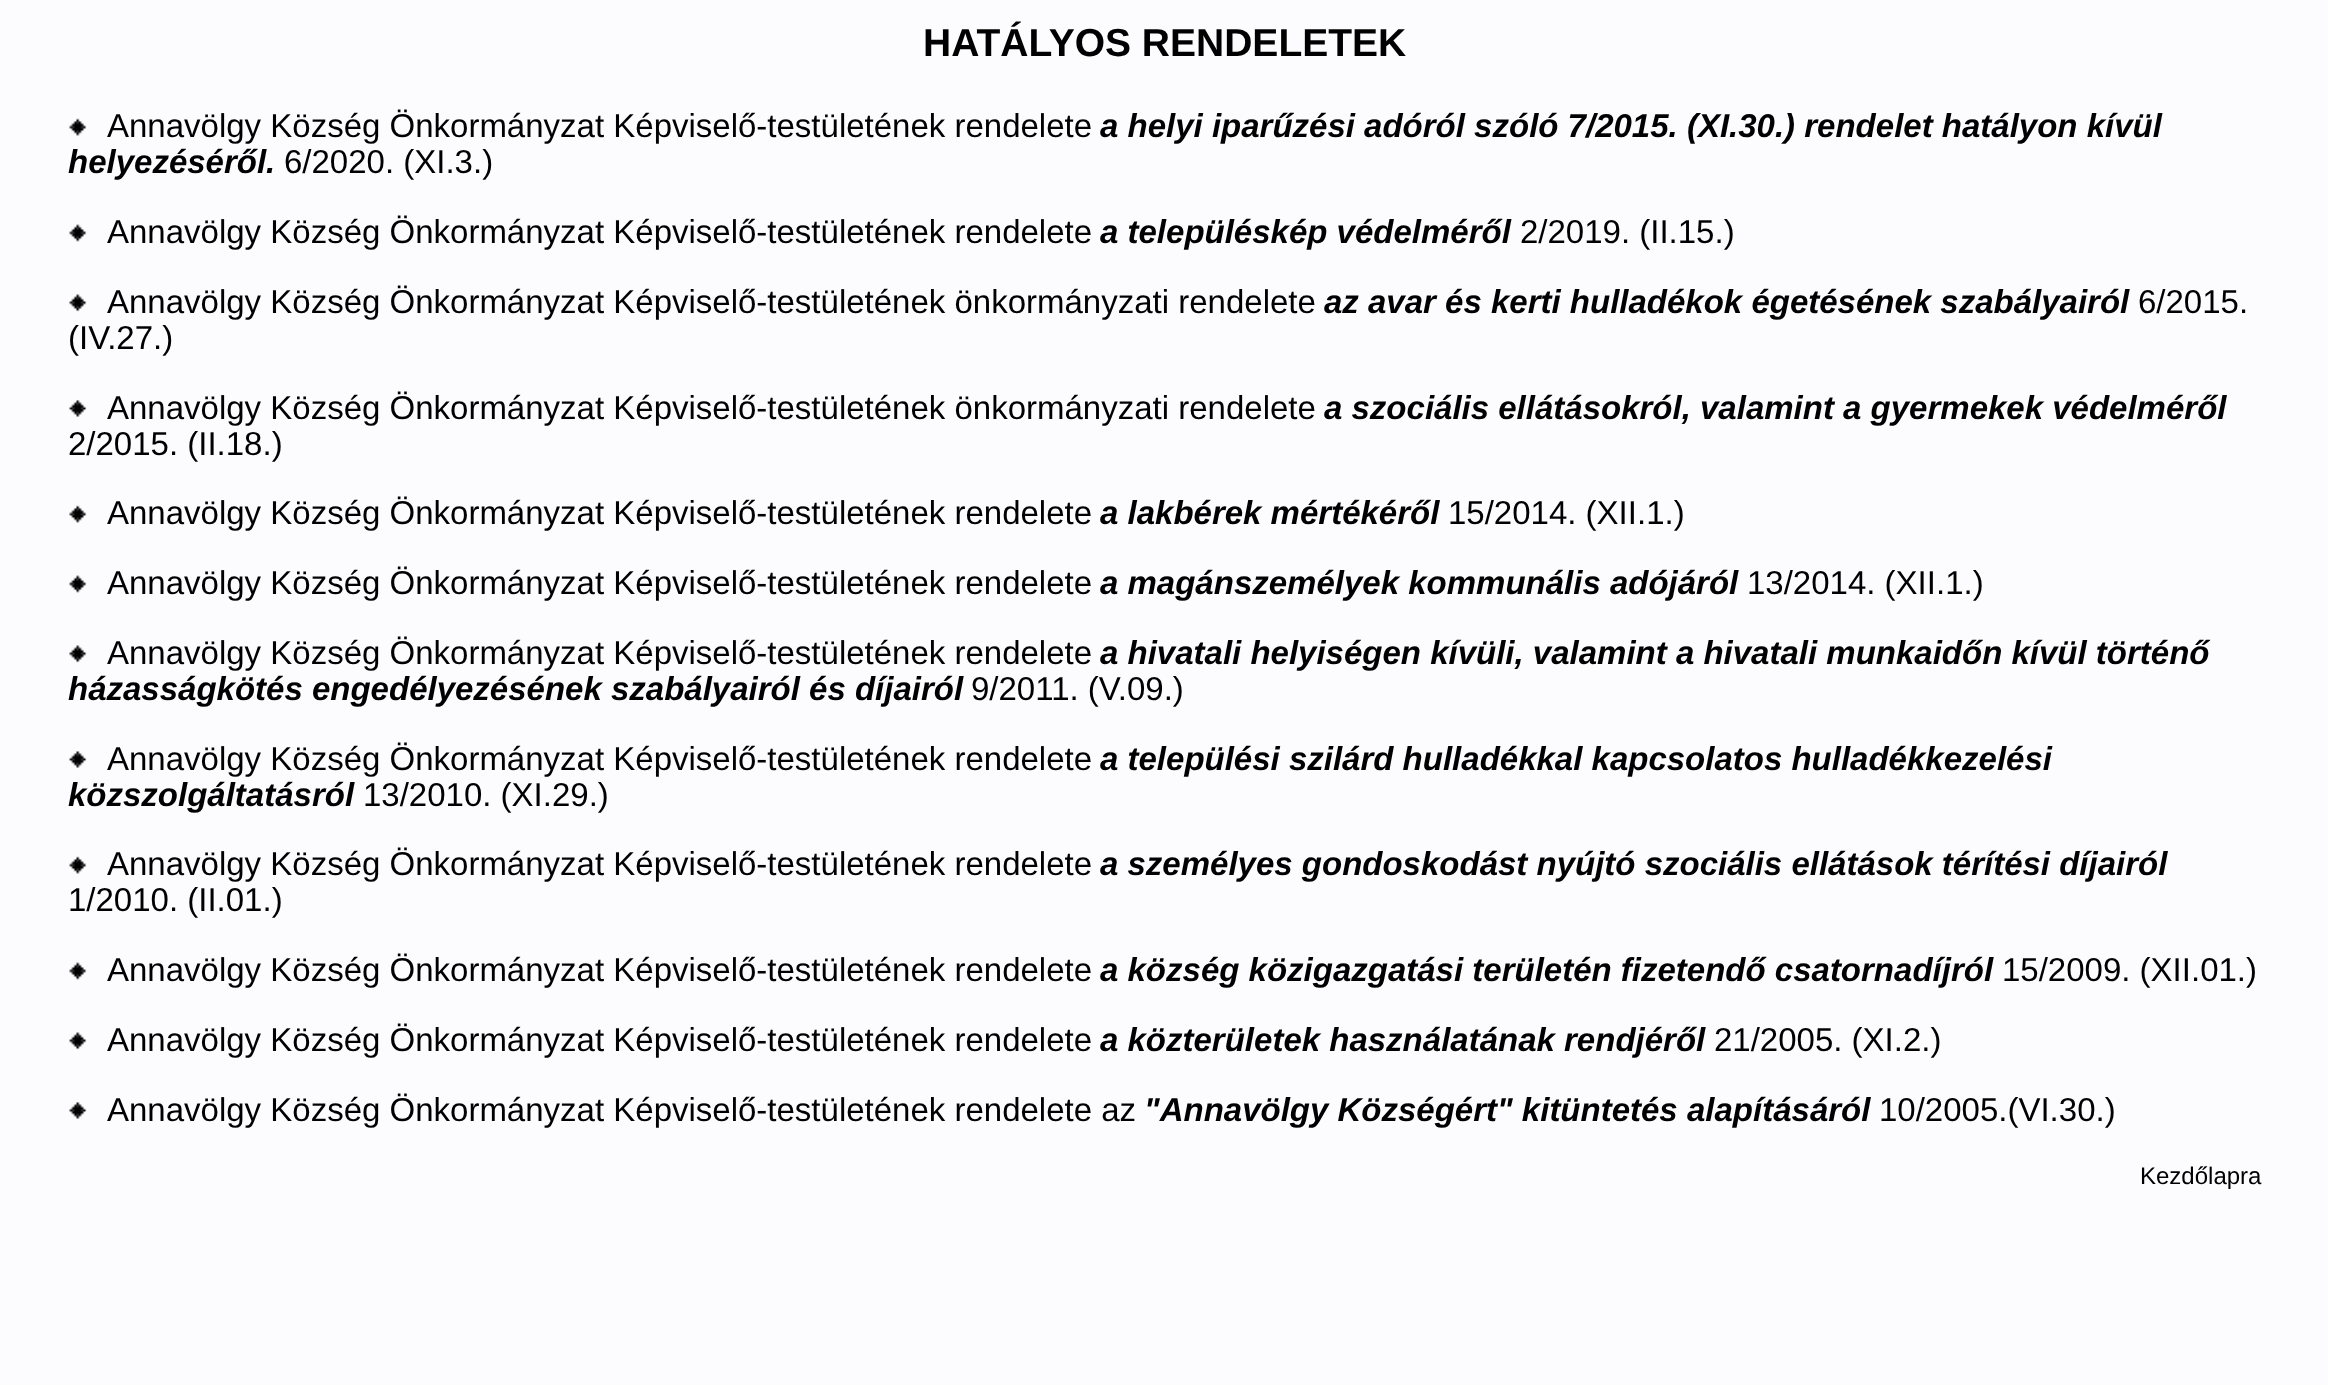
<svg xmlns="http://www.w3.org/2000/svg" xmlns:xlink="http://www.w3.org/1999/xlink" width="2328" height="1385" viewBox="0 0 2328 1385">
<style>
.cls-1{font:bold 39px Liberation Sans;fill:#000000}
.cls-2{font:33px Liberation Sans;fill:#000000}
.cls-3{font:italic bold 33px Liberation Sans;fill:#000000}
.cls-4{font:24px Liberation Sans;fill:#000000}
</style>
<rect width="100%" height="100%" fill="#fcfcfe"/>
<image xlink:href="image0.png" x="69" y="118" width="18" height="18"/>
<image xlink:href="image1.png" x="69" y="224" width="18" height="18"/>
<image xlink:href="image2.png" x="69" y="294" width="18" height="18"/>
<image xlink:href="image3.png" x="69" y="400" width="18" height="17"/>
<image xlink:href="image0.png" x="69" y="505" width="18" height="18"/>
<image xlink:href="image4.png" x="69" y="575" width="18" height="18"/>
<image xlink:href="image2.png" x="69" y="645" width="18" height="18"/>
<image xlink:href="image3.png" x="69" y="751" width="18" height="17"/>
<image xlink:href="image0.png" x="69" y="856" width="18" height="18"/>
<image xlink:href="image1.png" x="69" y="962" width="18" height="18"/>
<image xlink:href="image2.png" x="69" y="1032" width="18" height="18"/>
<image xlink:href="image3.png" x="69" y="1102" width="18" height="17"/>
<text class="cls-1" x="923" y="56">HATÁLYOS RENDELETEK</text>
<text class="cls-2" x="107" y="137">Annavölgy Község Önkormányzat Képviselő-testületének rendelete</text>
<text class="cls-3" x="1100" y="137">a helyi iparűzési adóról szóló 7/2015. (XI.30.) rendelet hatályon kívül</text>
<text class="cls-3" x="68" y="173">helyezéséről.</text>
<text class="cls-2" x="284" y="173">6/2020. (XI.3.)</text>
<text class="cls-2" x="107" y="243">Annavölgy Község Önkormányzat Képviselő-testületének rendelete</text>
<text class="cls-3" x="1100" y="243">a településkép védelméről</text>
<text class="cls-2" x="1520" y="243">2/2019. (II.15.)</text>
<text class="cls-2" x="107" y="313">Annavölgy Község Önkormányzat Képviselő-testületének önkormányzati rendelete</text>
<text class="cls-3" x="1324" y="313">az avar és kerti hulladékok égetésének szabályairól</text>
<text class="cls-2" x="2138" y="313">6/2015.</text>
<text class="cls-2" x="68" y="349">(IV.27.)</text>
<text class="cls-2" x="107" y="419">Annavölgy Község Önkormányzat Képviselő-testületének önkormányzati rendelete</text>
<text class="cls-3" x="1324" y="419">a szociális ellátásokról, valamint a gyermekek védelméről</text>
<text class="cls-2" x="68" y="455">2/2015. (II.18.)</text>
<text class="cls-2" x="107" y="524">Annavölgy Község Önkormányzat Képviselő-testületének rendelete</text>
<text class="cls-3" x="1100" y="524">a lakbérek mértékéről</text>
<text class="cls-2" x="1448" y="524">15/2014. (XII.1.)</text>
<text class="cls-2" x="107" y="594">Annavölgy Község Önkormányzat Képviselő-testületének rendelete</text>
<text class="cls-3" x="1100" y="594">a magánszemélyek kommunális adójáról</text>
<text class="cls-2" x="1747" y="594">13/2014. (XII.1.)</text>
<text class="cls-2" x="107" y="664">Annavölgy Község Önkormányzat Képviselő-testületének rendelete</text>
<text class="cls-3" x="1100" y="664">a hivatali helyiségen kívüli, valamint a hivatali munkaidőn kívül történő</text>
<text class="cls-3" x="68" y="700">házasságkötés engedélyezésének szabályairól és díjairól</text>
<text class="cls-2" x="971" y="700">9/2011. (V.09.)</text>
<text class="cls-2" x="107" y="770">Annavölgy Község Önkormányzat Képviselő-testületének rendelete</text>
<text class="cls-3" x="1100" y="770">a települési szilárd hulladékkal kapcsolatos hulladékkezelési</text>
<text class="cls-3" x="68" y="806">közszolgáltatásról</text>
<text class="cls-2" x="363" y="806">13/2010. (XI.29.)</text>
<text class="cls-2" x="107" y="875">Annavölgy Község Önkormányzat Képviselő-testületének rendelete</text>
<text class="cls-3" x="1100" y="875">a személyes gondoskodást nyújtó szociális ellátások térítési díjairól</text>
<text class="cls-2" x="68" y="911">1/2010. (II.01.)</text>
<text class="cls-2" x="107" y="981">Annavölgy Község Önkormányzat Képviselő-testületének rendelete</text>
<text class="cls-3" x="1100" y="981">a község közigazgatási területén fizetendő csatornadíjról</text>
<text class="cls-2" x="2002" y="981">15/2009. (XII.01.)</text>
<text class="cls-2" x="107" y="1051">Annavölgy Község Önkormányzat Képviselő-testületének rendelete</text>
<text class="cls-3" x="1100" y="1051">a közterületek használatának rendjéről</text>
<text class="cls-2" x="1714" y="1051">21/2005. (XI.2.)</text>
<text class="cls-2" x="107" y="1121">Annavölgy Község Önkormányzat Képviselő-testületének rendelete az</text>
<text class="cls-3" x="1144" y="1121">"Annavölgy Községért" kitüntetés</text>
<text class="cls-3" x="1687" y="1121">alapításáról</text>
<text class="cls-2" x="1879" y="1121">10/2005.(VI.30.)</text>
<text class="cls-4" x="2140" y="1184">Kezdőlapra</text>
</svg>
